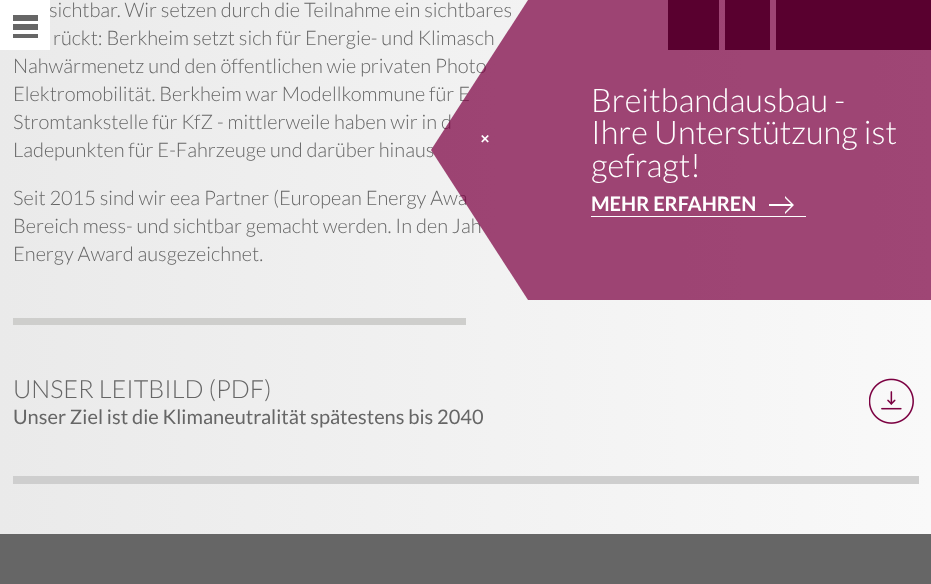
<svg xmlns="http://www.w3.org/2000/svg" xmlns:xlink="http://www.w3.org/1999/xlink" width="931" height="584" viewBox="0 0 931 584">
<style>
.cls-1{font:300 20px Lato;fill:#666666}
.cls-2{font:300 25px Lato;fill:#666666}
.cls-3{font:20px Lato;fill:#666666}
.cls-4{font:300 32.5px Lato;fill:#ffffff}
.cls-5{font:bold 20px Lato;fill:#ffffff}
</style>
<defs>
<linearGradient id="g1" gradientUnits="userSpaceOnUse" x1="0" y1="-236" x2="931" y2="-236"><stop offset="0" stop-color="#eaeaea"/><stop offset="1" stop-color="#f9f9f9"/></linearGradient>
</defs>
<rect width="100%" height="100%" fill="#ffffff"/>
<rect fill="url(#g1)" x="0" y="0" width="931" height="534"/>
<rect fill="#000000" x="668" y="0" width="51" height="50"/>
<rect fill="#000000" x="725" y="0" width="45" height="50"/>
<rect fill="#000000" x="776" y="0" width="155" height="50"/>
<rect fill="#cececc" x="13" y="318" width="453" height="7"/>
<rect fill="#cecece" x="13" y="476" width="906" height="8"/>
<image xlink:href="image0.png" x="869" y="378" width="45" height="46"/>
<rect fill="#666666" x="0" y="534" width="931" height="50"/>
<text class="cls-1" x="49" y="17">sichtbar. Wir setzen durch die Teilnahme ein sichtbares</text>
<rect fill="#ffffff" x="0" y="0" width="50" height="50"/>
<rect fill="#666666" x="13" y="34" width="25" height="4"/>
<rect fill="#666666" x="13" y="24" width="25" height="6"/>
<rect fill="#666666" x="13" y="15" width="25" height="6"/>
<text class="cls-1" x="53" y="45">rückt: Berkheim setzt sich für Energie- und Klimasch</text>
<text class="cls-1"><tspan x="13" y="73">Nahwärmenetz und den öffentlichen wie privaten Photo</tspan><tspan x="13" y="101">Elektromobilität. Berkheim war Modellkommune für E</tspan><tspan x="13" y="129">Stromtankstelle für KfZ - mittlerweile haben wir in d</tspan><tspan x="13" y="157">Ladepunkten für E-Fahrzeuge und darüber hinaus</tspan></text>
<text class="cls-1"><tspan x="13" y="205">Seit 2015 sind wir eea Partner (European Energy Awa</tspan><tspan x="13" y="233">Bereich mess- und sichtbar gemacht werden. In den Jah</tspan><tspan x="13" y="261">Energy Award ausgezeichnet.</tspan></text>
<text class="cls-2" x="13" y="398">UNSER LEITBILD (PDF)</text>
<text class="cls-3" x="13" y="424">Unser Ziel ist die Klimaneutralität spätestens bis 2040</text>
<path fill="#7b0041" fill-opacity="0.72" d="M931 0H528L431 150L528 300H931"/>
<image xlink:href="image1.png" x="481" y="135" width="8" height="8"/>
<text class="cls-4"><tspan x="591" y="112">Breitbandausbau -</tspan><tspan x="591" y="144">Ihre Unterstützung ist</tspan><tspan x="591" y="177">gefragt!</tspan></text>
<rect fill="#ffffff" x="591" y="216" width="215" height="1"/>
<text class="cls-5" x="591" y="211">MEHR ERFAHREN</text>
<rect fill="#ffffff" x="769" y="204" width="23" height="2"/>
<path fill="#ffffff" d="M785 198L792 205L785 212V214L794 205L785 196Z"/>
</svg>
